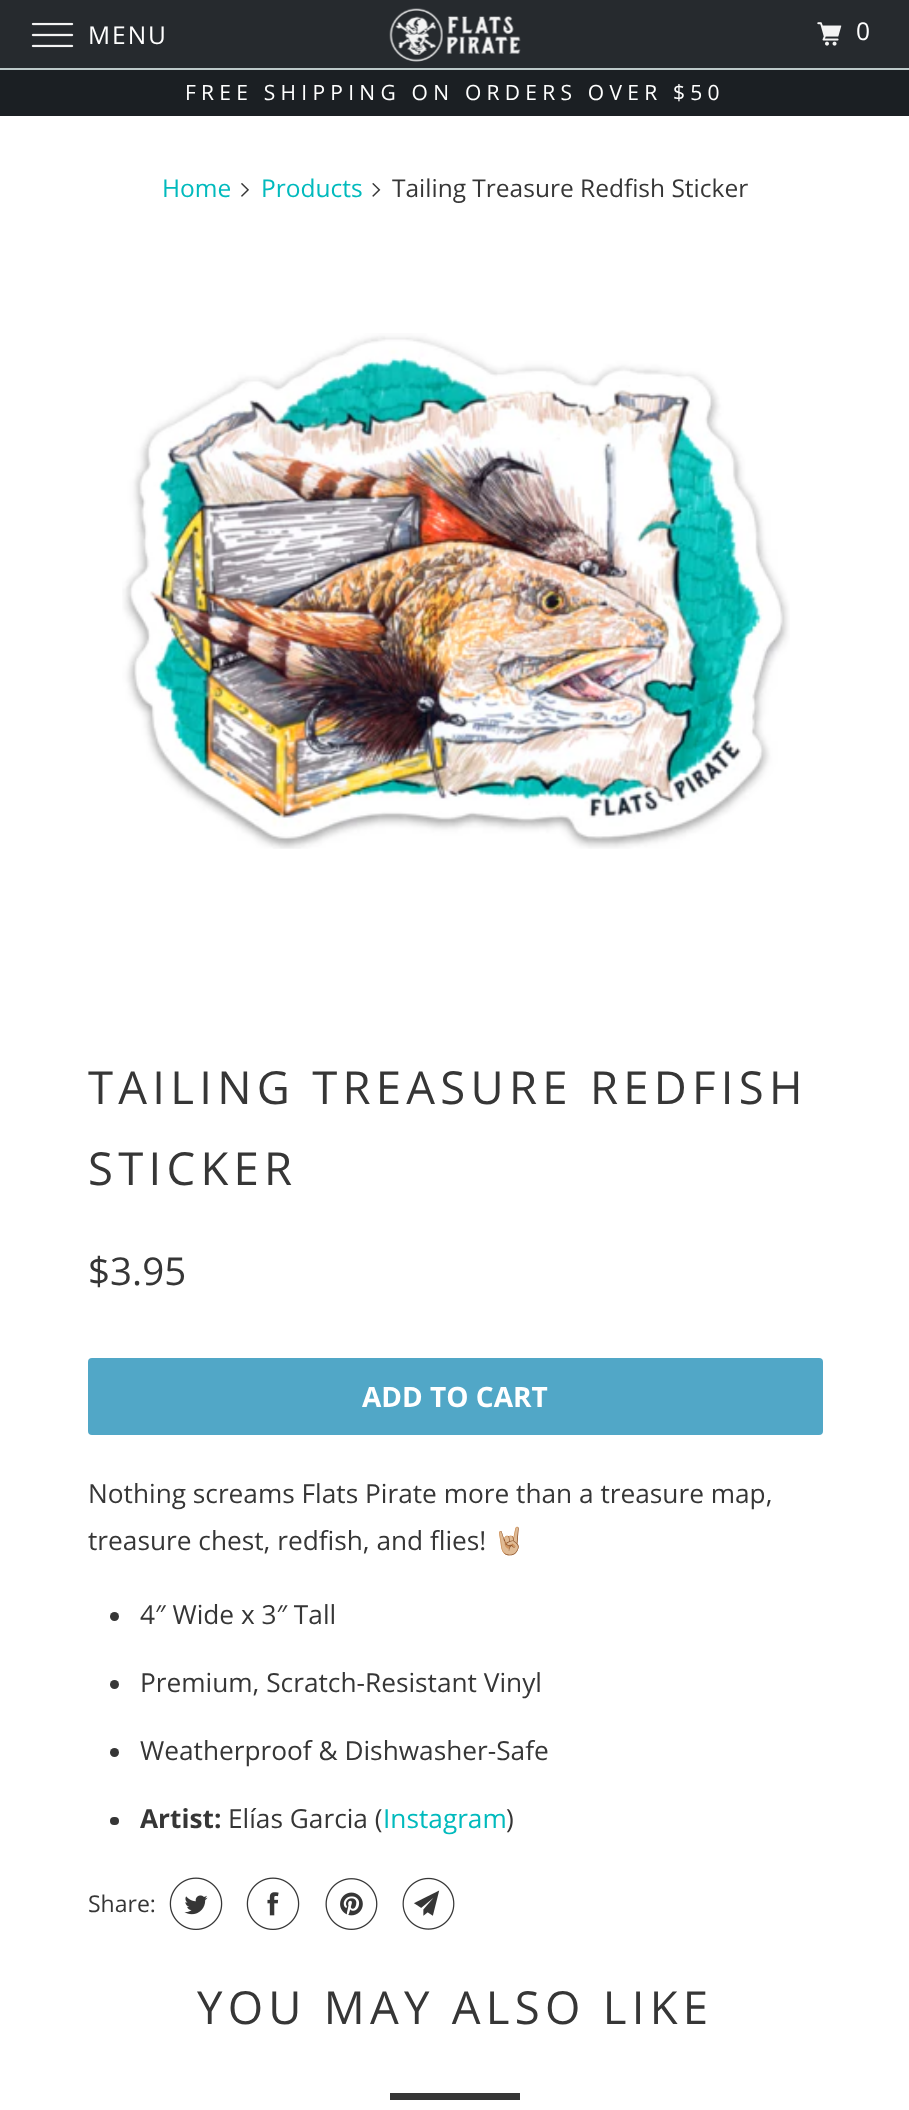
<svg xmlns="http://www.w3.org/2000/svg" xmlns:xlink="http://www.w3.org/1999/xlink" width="909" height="2110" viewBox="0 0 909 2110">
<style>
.cls-1{font:24.5px Open Sans;letter-spacing:2px;fill:#ffffff}
.cls-2{font:21px Open Sans;letter-spacing:5.25px;fill:#ffffff}
.cls-3{font:24.5px Open Sans;fill:#01babd}
.cls-4{font:24.5px Open Sans;fill:#363636}
.cls-5{font:45.5px Open Sans;letter-spacing:5.25px;fill:#363636}
.cls-6{font:38.5px Open Sans;fill:#363636}
.cls-7{font:bold 28px Open Sans;fill:#ffffff}
.cls-8{font:26.25px Open Sans;fill:#363636}
.cls-9{font:26.25px Noto Color Emoji;fill:#363636}
.cls-10{font:bold 26.25px Open Sans;fill:#363636}
.cls-11{font:26.25px Open Sans;fill:#01babd}
.cls-12{font:23px Open Sans;fill:#363636}
</style>
<rect width="100%" height="100%" fill="#ffffff"/>
<rect fill="#262a2e" x="0" y="0" width="909" height="68"/>
<rect fill="#bcc9c9" x="0" y="68" width="909" height="2"/>
<image xlink:href="image0.png" x="31" y="22" width="43" height="26"/>
<image xlink:href="image1.png" x="389" y="8" width="132" height="54"/>
<image xlink:href="image2.png" x="817" y="22" width="25" height="24"/>
<rect fill="#1b1f23" x="0" y="70" width="909" height="46"/>
<image xlink:href="image3.png" x="241" y="183" width="8" height="14"/>
<image xlink:href="image4.png" x="372" y="183" width="9" height="14"/>
<image xlink:href="image5.png" x="122" y="333" width="668" height="516"/>
<rect fill="#51a7c7" x="88" y="1358" width="735" height="77" rx="4"/>
<circle fill="#363636" cx="114.5" cy="1616.5" r="4.5"/>
<circle fill="#363636" cx="114.5" cy="1684.5" r="4.5"/>
<circle fill="#363636" cx="114.5" cy="1752.5" r="4.5"/>
<rect fill="#363636" x="110" y="1817" width="9" height="8" rx="4"/>
<image xlink:href="image6.png" x="169" y="1877" width="54" height="53"/>
<image xlink:href="image7.png" x="246" y="1877" width="54" height="53"/>
<image xlink:href="image8.png" x="325" y="1878" width="53" height="52"/>
<image xlink:href="image9.png" x="402" y="1877" width="53" height="53"/>
<rect fill="#363636" x="390" y="2093" width="130" height="7"/>
<text class="cls-1" x="88" y="44">MENU</text>
<text class="cls-1" x="856" y="40">0</text>
<text class="cls-2" x="185" y="100">FREE SHIPPING ON ORDERS OVER $50</text>
<text class="cls-3" x="162" y="197">Home</text>
<text class="cls-3" x="261" y="197">Products</text>
<text class="cls-4" x="392" y="197">Tailing Treasure Redfish Sticker</text>
<text class="cls-5"><tspan x="88" y="1104">TAILING TREASURE REDFISH</tspan><tspan x="88" y="1185">STICKER</tspan></text>
<text class="cls-6" x="88" y="1285">$3.95</text>
<text class="cls-7" x="362" y="1407">ADD TO CART</text>
<text class="cls-8"><tspan x="88" y="1503">Nothing screams Flats Pirate more than a treasure map,</tspan><tspan x="88" y="1550">treasure chest, redfish, and flies!</tspan></text>
<text class="cls-9" x="493" y="1550">🤘🏼</text>
<text class="cls-8" x="140" y="1624">4″ Wide x 3″ Tall</text>
<text class="cls-8" x="140" y="1692">Premium, Scratch-Resistant Vinyl</text>
<text class="cls-8" x="140" y="1760">Weatherproof &amp; Dishwasher-Safe</text>
<text class="cls-10" x="140" y="1828">Artist:</text>
<text class="cls-8" x="228" y="1828">Elías Garcia (</text>
<text class="cls-11" x="383" y="1828">Instagram</text>
<text class="cls-8" x="506" y="1828">)</text>
<text class="cls-12" x="88" y="1912">Share:</text>
<text class="cls-5" x="197" y="2024">YOU MAY ALSO LIKE</text>
</svg>
